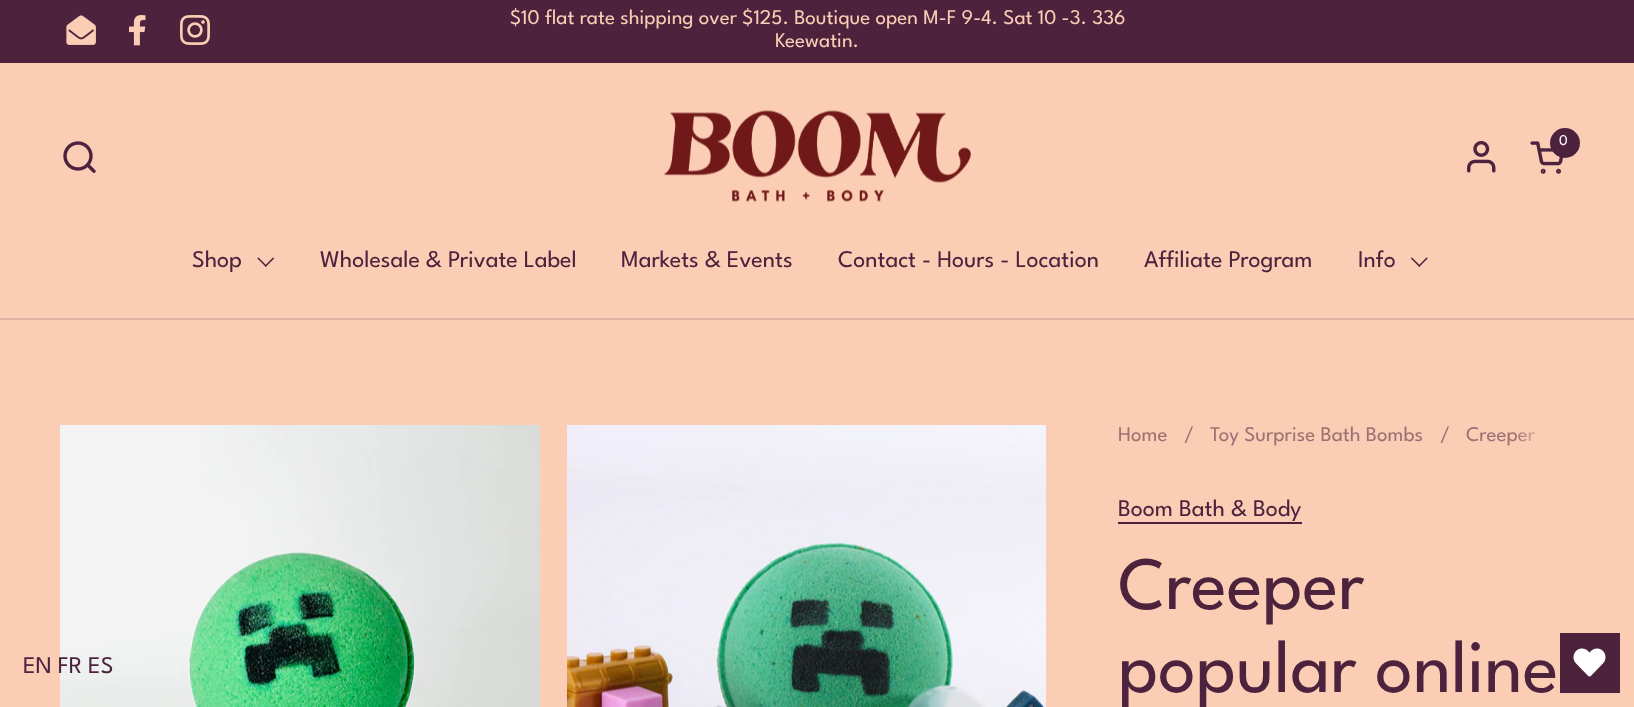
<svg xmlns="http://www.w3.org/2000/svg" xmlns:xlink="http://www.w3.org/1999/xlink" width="1634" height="707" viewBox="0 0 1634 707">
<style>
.cls-1{font:100 21px League Spartan;fill:#facdb4}
.cls-2{font:100 15px League Spartan;fill:#ffffff}
.cls-3{font:100 24px League Spartan;fill:#4c223d}
.cls-4{font:100 21px League Spartan;fill:#9c7174}
.cls-5{font:100 75px League Spartan;fill:#4c223d}
</style>
<defs>
<linearGradient id="g1" gradientUnits="userSpaceOnUse" x1="1575" y1="440" x2="1515" y2="440"><stop offset="0.5" stop-color="#facdb4"/><stop offset="1" stop-color="#facdb4" stop-opacity="0"/></linearGradient>
</defs>
<rect width="100%" height="100%" fill="#facdb4"/>
<rect fill="#4c223d" x="0" y="0" width="1634" height="63"/>
<image xlink:href="image0.png" x="66" y="15" width="30" height="30"/>
<image xlink:href="image1.png" x="129" y="15" width="17" height="31"/>
<image xlink:href="image2.png" x="180" y="15" width="30" height="30"/>
<image xlink:href="image3.png" x="63" y="141" width="33" height="32"/>
<image xlink:href="image4.png" x="664" y="110" width="307" height="92"/>
<image xlink:href="image5.png" x="1467" y="141" width="29" height="32"/>
<circle fill="#4c223d" cx="1565" cy="143" r="15"/>
<image xlink:href="image7.png" x="257" y="257" width="18" height="10"/>
<image xlink:href="image8.png" x="1410" y="257" width="18" height="10"/>
<rect fill="#e0b3a2" x="0" y="318" width="1634" height="2"/>
<image xlink:href="image9.png" x="60" y="425" width="480" height="282"/>
<image xlink:href="image10.png" x="567" y="425" width="479" height="282"/>
<rect fill="#4c223d" x="1118" y="522" width="184" height="2"/>
<rect fill="#4c223d" x="1560" y="633" width="60" height="60"/>
<image xlink:href="image11.png" x="1573" y="648" width="33" height="29"/>
<text class="cls-1" x="510" y="24">$10 flat rate shipping over $125. Boutique open M-F 9-4. Sat 10 -3. 336</text>
<text class="cls-1" x="775" y="47">Keewatin.</text>
<text class="cls-2" x="1559" y="145">0</text>
<image xlink:href="image6.png" x="1530" y="141" width="33" height="33"/>
<text class="cls-3" x="192" y="267">Shop</text>
<text class="cls-3" x="320" y="267">Wholesale &amp; Private Label</text>
<text class="cls-3" x="621" y="267">Markets &amp; Events</text>
<text class="cls-3" x="838" y="267">Contact - Hours - Location</text>
<text class="cls-3" x="1144" y="267">Affiliate Program</text>
<text class="cls-3" x="1358" y="267">Info</text>
<text class="cls-3" x="23" y="673">EN FR ES</text>
<text class="cls-4" x="1118" y="441">Home</text>
<text class="cls-4" x="1184" y="441">/</text>
<text class="cls-4" x="1210" y="441">Toy Surprise Bath Bombs</text>
<text class="cls-4" x="1440" y="441">/</text>
<text class="cls-4" x="1466" y="441">Creeper</text>
<rect fill="url(#g1)" x="1516" y="432" width="20" height="10"/>
<text class="cls-3" x="1118" y="516">Boom Bath &amp; Body</text>
<text class="cls-5"><tspan x="1118" y="609">Creeper</tspan><tspan x="1118" y="692">popular online</tspan></text>
</svg>
